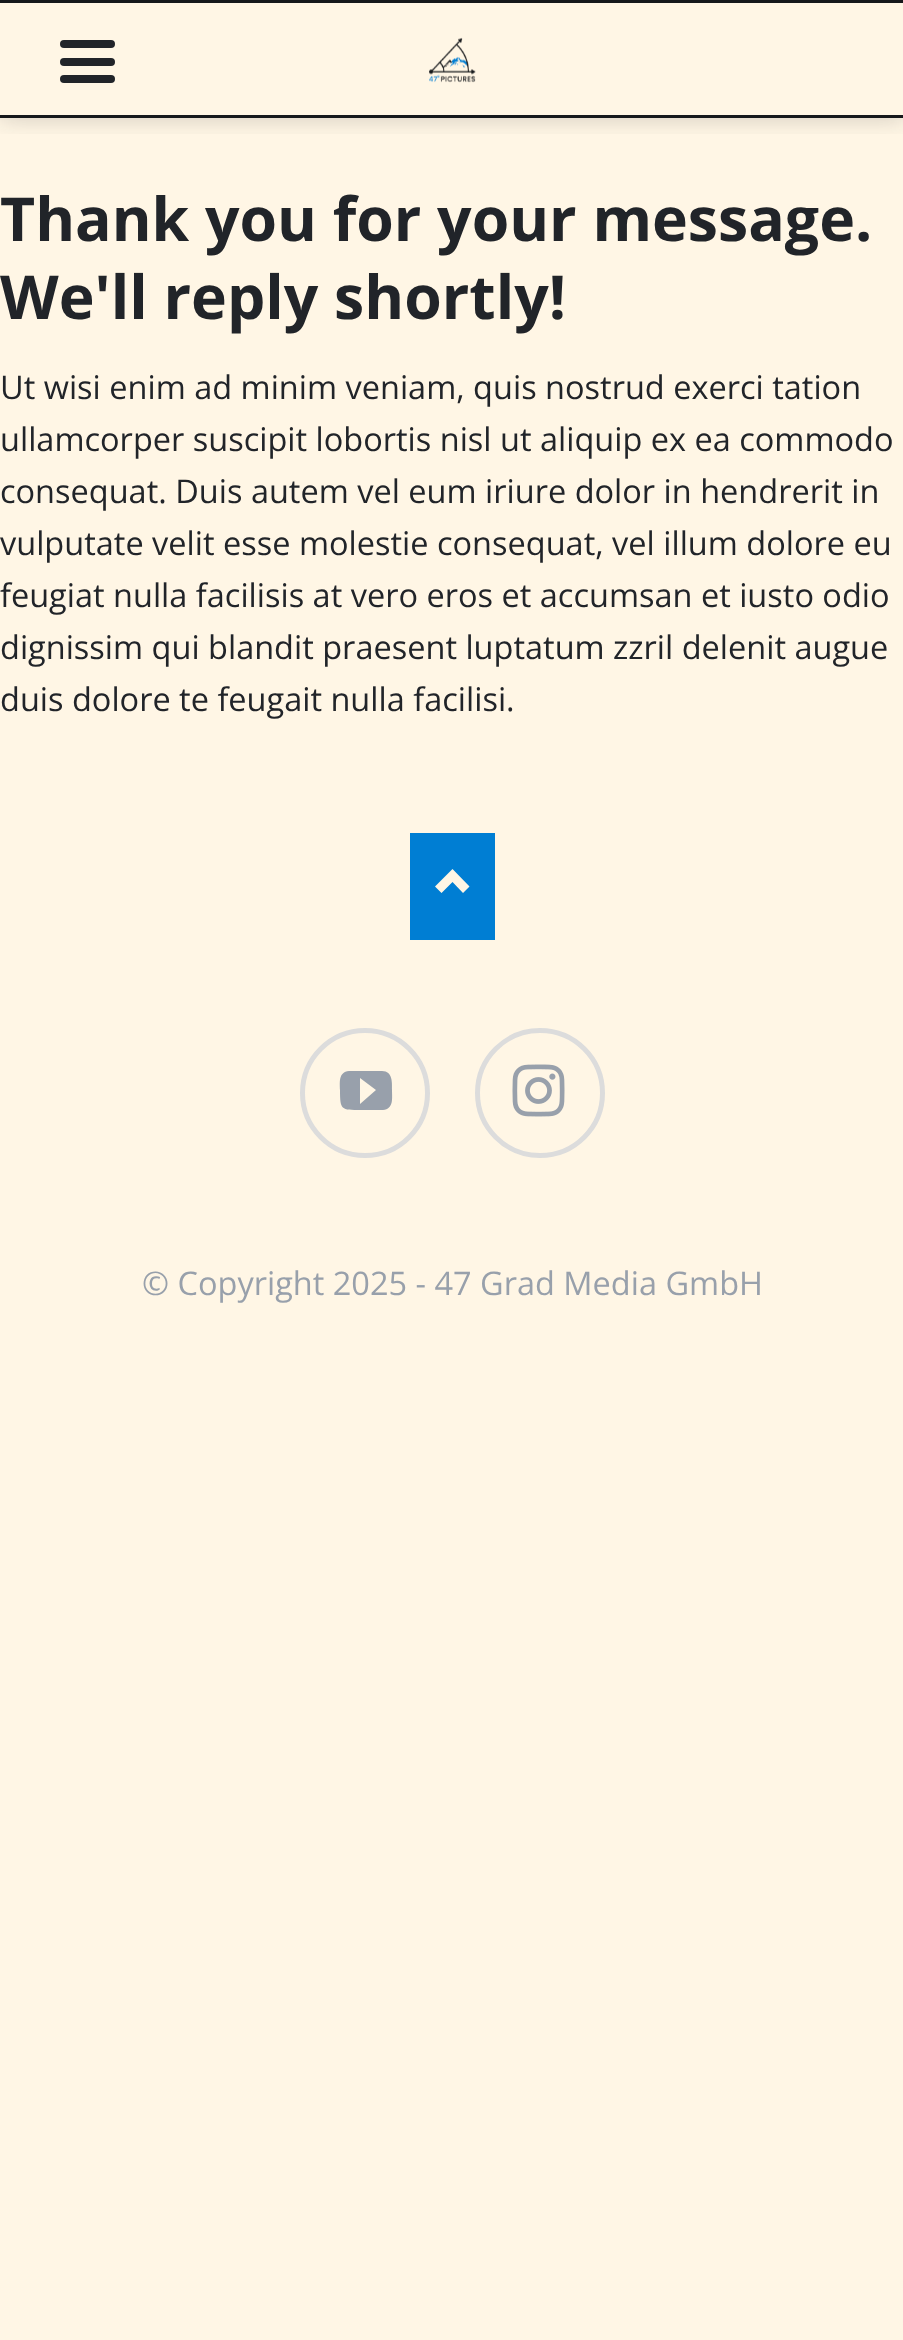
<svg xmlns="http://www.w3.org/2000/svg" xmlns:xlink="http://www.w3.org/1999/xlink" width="903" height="2340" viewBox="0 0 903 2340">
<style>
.cls-1{font:bold 60.7px Open Sans;fill:#212429}
.cls-2{font:32.5px Open Sans;fill:#212429}
.cls-3{font:32.5px Open Sans;fill:#98a0ab}
</style>
<defs>
<clipPath id="clip1"><rect x="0" y="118" width="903" height="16"/></clipPath>
</defs>
<rect width="100%" height="100%" fill="#fff6e5"/>
<g clip-path="url(#clip1)">
<rect fill="#16181b" fill-opacity="0.2" filter="blur(12.5px)" x="0" y="0" width="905" height="118"/>
</g>
<rect fill="#16181b" x="0" y="0" width="903" height="3"/>
<rect fill="#16181b" x="0" y="115" width="903" height="3"/>
<rect fill="#212429" x="60" y="75" width="55" height="8" rx="4"/>
<rect fill="#212429" x="60" y="58" width="55" height="8" rx="4"/>
<rect fill="#212429" x="60" y="40" width="55" height="8" rx="4"/>
<image xlink:href="image0.png" x="429" y="37" width="47" height="46"/>
<rect fill="#007ed3" x="410" y="833" width="85" height="107"/>
<path fill="#fff6e5" d="M435 886.5L441.5 893L452.5 882L463 893L469.5 886.5L452.5 869Z"/>
<circle fill="none" stroke="#dcdcdc" stroke-width="5" cx="365" cy="1093" r="62.5"/>
<path fill="#98a0ab" d="M382 1071H349C338 1072 340 1083 340 1090C340 1110 341 1110 361 1110H383C394 1109 392 1098 392 1090C392 1083 393 1071 382 1071ZM360 1104V1078L376 1090Z"/>
<circle fill="none" stroke="#dcdcdc" stroke-width="5" cx="540" cy="1093" r="62.5"/>
<image xlink:href="image1.png" x="512" y="1064" width="53" height="53"/>
<text class="cls-1"><tspan x="0" y="241">Thank you for your message.</tspan><tspan x="0" y="319">We'll reply shortly!</tspan></text>
<text class="cls-2"><tspan x="0" y="399">Ut wisi enim ad minim veniam, quis nostrud exerci tation</tspan><tspan x="0" y="451">ullamcorper suscipit lobortis nisl ut aliquip ex ea commodo</tspan><tspan x="0" y="503">consequat. Duis autem vel eum iriure dolor in hendrerit in</tspan><tspan x="0" y="555">vulputate velit esse molestie consequat, vel illum dolore eu</tspan><tspan x="0" y="607">feugiat nulla facilisis at vero eros et accumsan et iusto odio</tspan><tspan x="0" y="659">dignissim qui blandit praesent luptatum zzril delenit augue</tspan><tspan x="0" y="711">duis dolore te feugait nulla facilisi.</tspan></text>
<text class="cls-3" x="142" y="1295">© Copyright 2025 - 47 Grad Media GmbH</text>
</svg>
